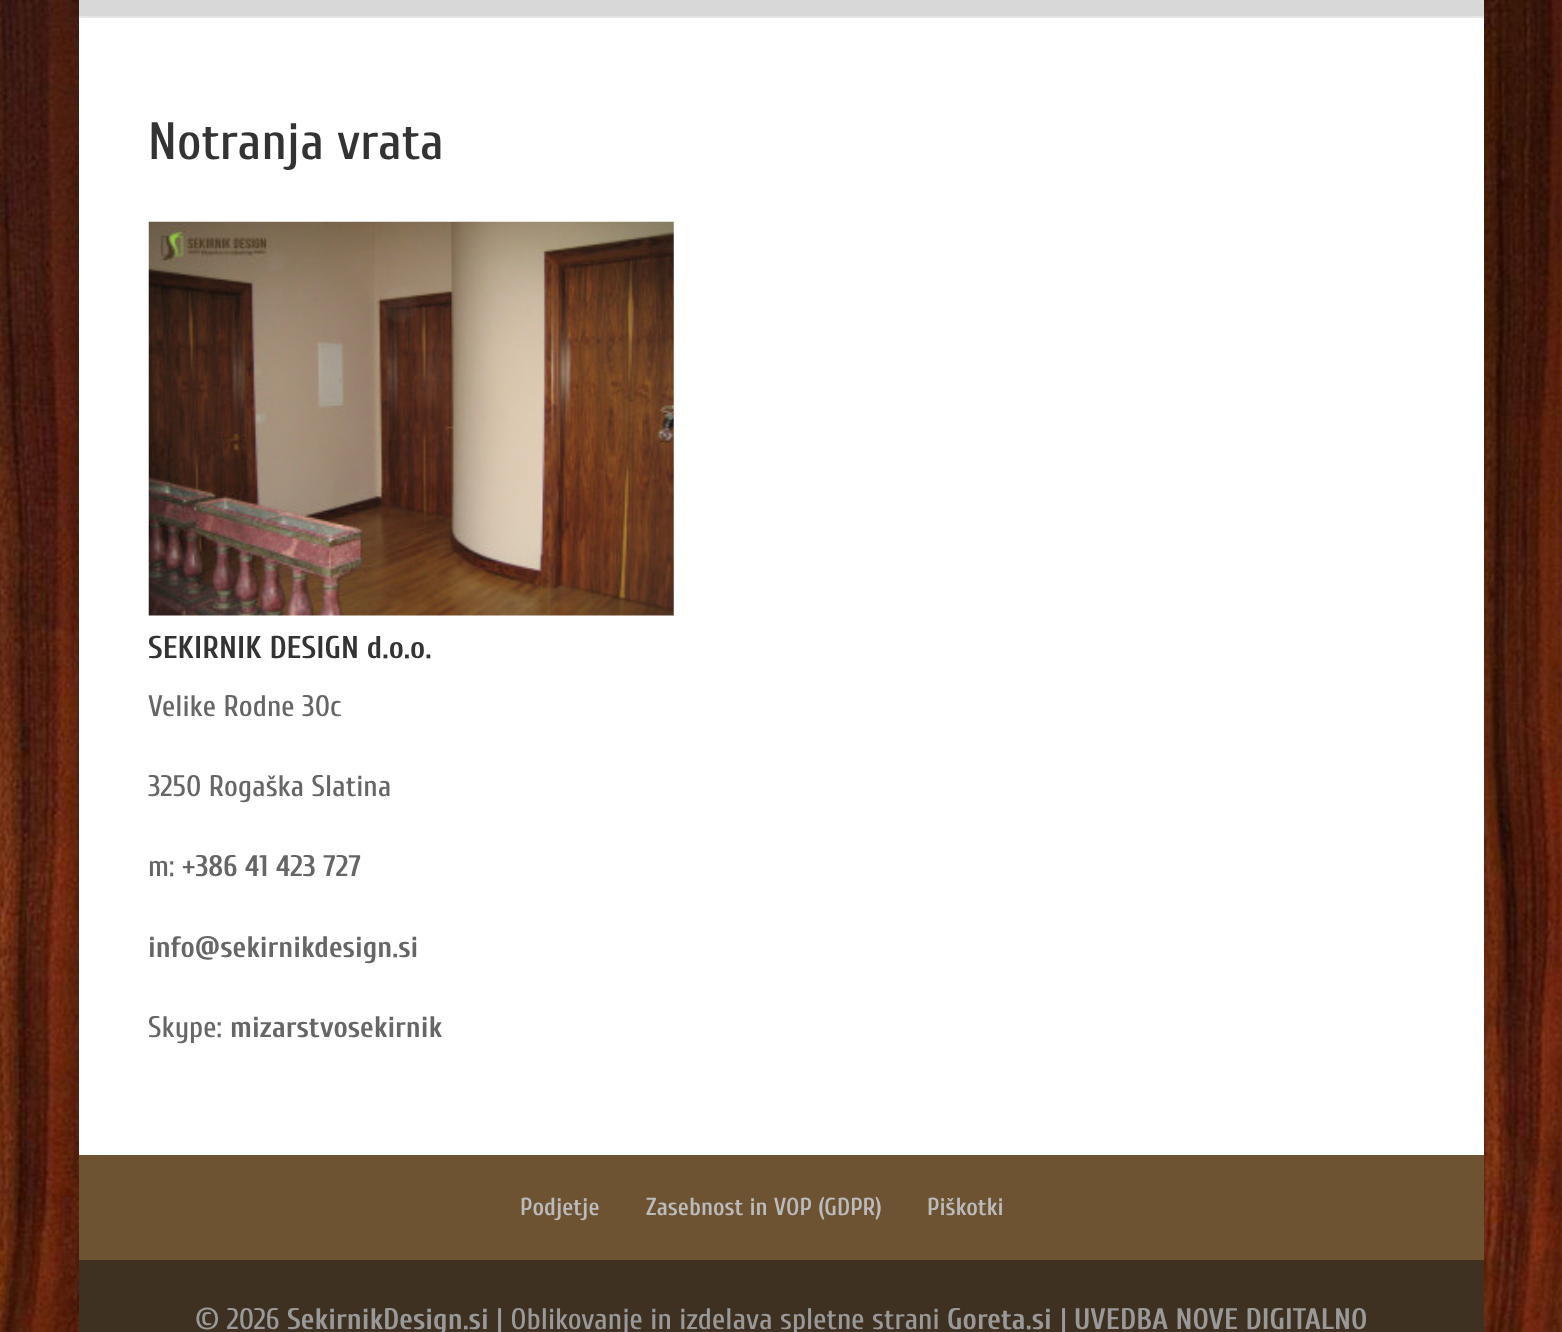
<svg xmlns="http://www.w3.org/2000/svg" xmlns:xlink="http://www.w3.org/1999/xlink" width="1562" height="1332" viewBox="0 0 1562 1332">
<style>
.cls-1{font:500 52.5px Cuprum;fill:#333333}
.cls-2{font:bold 31.5px Cuprum;fill:#333333}
.cls-3{font:500 29.75px Cuprum;fill:#666666}
.cls-4{font:bold 29.75px Cuprum;fill:#666666}
.cls-5{font:600 24.5px Cuprum;fill:#bbbbbb}
.cls-6{font:500 29.75px Cuprum;fill:#999999}
.cls-7{font:bold 29.75px Cuprum;fill:#999999}
</style>
<rect width="100%" height="100%" fill="#ffffff"/>
<image xlink:href="image0.png" x="0" y="0" width="1562" height="1332"/>
<rect fill="#000000" fill-opacity="0.2" filter="blur(9px)" x="79" y="-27" width="1405" height="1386"/>
<rect fill="#e6e6e6" x="79" y="16" width="1405" height="2"/>
<rect fill="#d8d8d8" x="79" y="0" width="1405" height="16"/>
<rect fill="#ffffff" x="79" y="18" width="1405" height="1137"/>
<image xlink:href="image1.png" x="148" y="221" width="526" height="395"/>
<rect fill="#6d5332" x="79" y="1155" width="1405" height="105"/>
<rect fill="#3e3121" x="79" y="1260" width="1405" height="72"/>
<text class="cls-1" x="148" y="159">Notranja vrata</text>
<text class="cls-2" x="148" y="658">SEKIRNIK DESIGN d.o.o.</text>
<text class="cls-3" x="148" y="716">Velike Rodne 30c</text>
<text class="cls-3" x="148" y="796">3250 Rogaška Slatina</text>
<text class="cls-3" x="148" y="876">m:</text>
<text class="cls-4" x="182" y="876">+386 41 423 727</text>
<text class="cls-4" x="148" y="957">info@sekirnikdesign.si</text>
<text class="cls-3" x="148" y="1037">Skype:</text>
<text class="cls-4" x="230" y="1037">mizarstvosekirnik</text>
<text class="cls-5" x="520" y="1215">Podjetje</text>
<text class="cls-5" x="646" y="1215">Zasebnost in VOP (GDPR)</text>
<text class="cls-5" x="927" y="1215">Piškotki</text>
<text class="cls-6" x="195" y="1329">© 2026</text>
<text class="cls-7" x="287" y="1329">SekirnikDesign.si</text>
<text class="cls-6" x="496" y="1329">| Oblikovanje in izdelava spletne strani</text>
<text class="cls-7" x="947" y="1329">Goreta.si</text>
<text class="cls-6" x="1060" y="1329">|</text>
<text class="cls-7" x="1074" y="1329">UVEDBA NOVE DIGITALNO</text>
</svg>
